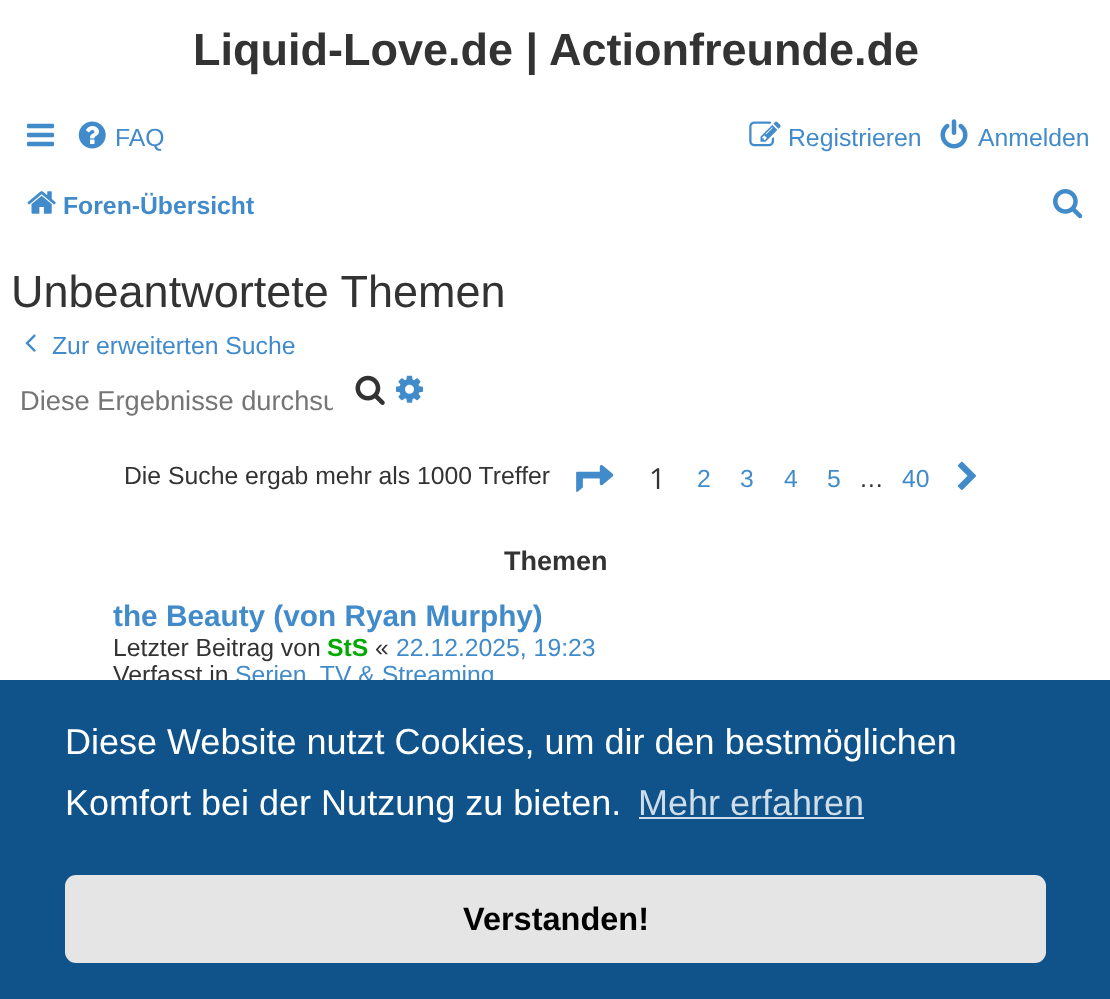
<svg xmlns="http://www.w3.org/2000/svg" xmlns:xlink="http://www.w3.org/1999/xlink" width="1110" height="999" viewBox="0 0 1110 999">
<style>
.cls-1{font:bold 45px Liberation Sans;fill:#333333}
.cls-2{font:24.75px Liberation Sans;fill:#428bca}
.cls-3{font:bold 24.75px Liberation Sans;fill:#428bca}
.cls-4{font:45px Liberation Sans;fill:#333333}
.cls-5{font:27.25px Liberation Sans;fill:#757575}
.cls-6{font:24.75px Liberation Sans;fill:#333333}
.cls-7{font:29px Open Sans;fill:#333333}
.cls-8{font:bold 27px Liberation Sans;fill:#333333}
.cls-9{font:bold 29.75px Liberation Sans;fill:#428bca}
.cls-10{font:bold 24.75px Liberation Sans;fill:#00aa00}
.cls-11{font:36px Liberation Sans;fill:#ffffff}
.cls-12{font:36px Liberation Sans;fill:#cfdde8}
.cls-13{font:bold 32.5px Liberation Sans;fill:#000000}
</style>
<defs>
<clipPath id="clip1"><rect x="20" y="385" width="313" height="31"/></clipPath>
</defs>
<rect width="100%" height="100%" fill="#ffffff"/>
<image xlink:href="image0.png" x="27" y="123" width="27" height="24"/>
<image xlink:href="image1.png" x="78" y="121" width="28" height="28"/>
<image xlink:href="image2.png" x="749" y="121" width="32" height="26"/>
<image xlink:href="image3.png" x="940" y="119" width="28" height="30"/>
<image xlink:href="image4.png" x="27" y="191" width="29" height="23"/>
<image xlink:href="image5.png" x="1053" y="189" width="30" height="30"/>
<image xlink:href="image6.png" x="25" y="334" width="11" height="18"/>
<image xlink:href="image7.png" x="355" y="375" width="30" height="30"/>
<image xlink:href="image8.png" x="396" y="375" width="27" height="28"/>
<image xlink:href="image9.png" x="576" y="465" width="38" height="27"/>
<image xlink:href="image10.png" x="957" y="461" width="19" height="29"/>
<text class="cls-1" x="193" y="65">Liquid-Love.de | Actionfreunde.de</text>
<text class="cls-2" x="115" y="146">FAQ</text>
<text class="cls-2" x="788" y="146">Registrieren</text>
<text class="cls-2" x="978" y="146">Anmelden</text>
<text class="cls-3" x="63" y="214">Foren-Übersicht</text>
<text class="cls-4" x="11" y="307">Unbeantwortete Themen</text>
<text class="cls-2" x="52" y="354">Zur erweiterten Suche</text>
<g clip-path="url(#clip1)">
<text class="cls-5" x="20" y="410">Diese Ergebnisse durchsu</text>
</g>
<text class="cls-6" x="124" y="484">Die Suche ergab mehr als 1000 Treffer</text>
<text class="cls-7" x="649" y="489">1</text>
<text class="cls-2" x="697" y="487">2</text>
<text class="cls-2" x="740" y="487">3</text>
<text class="cls-2" x="784" y="487">4</text>
<text class="cls-2" x="827" y="487">5</text>
<text class="cls-6" x="859" y="487">…</text>
<text class="cls-2" x="902" y="487">40</text>
<text class="cls-8" x="504" y="570">Themen</text>
<text class="cls-9" x="113" y="626">the Beauty (von Ryan Murphy)</text>
<text class="cls-6" x="113" y="656">Letzter Beitrag von</text>
<text class="cls-10" x="327" y="656">StS</text>
<text class="cls-6" x="375" y="656">«</text>
<text class="cls-2" x="396" y="656">22.12.2025, 19:23</text>
<text class="cls-6" x="113" y="683">Verfasst in</text>
<text class="cls-2" x="235" y="683">Serien, TV &amp; Streaming</text>
<rect fill="#0f538a" x="0" y="680" width="1110" height="319"/>
<text class="cls-11"><tspan x="65" y="754">Diese Website nutzt Cookies, um dir den bestmöglichen</tspan><tspan x="65" y="815">Komfort bei der Nutzung zu bieten.</tspan></text>
<text class="cls-12" x="638" y="815">Mehr erfahren</text>
<rect fill="#cfdde8" x="639" y="817" width="225" height="2"/>
<rect fill="#e5e5e5" x="65" y="875" width="981" height="88" rx="11"/>
<text class="cls-13" x="463" y="930">Verstanden!</text>
</svg>
